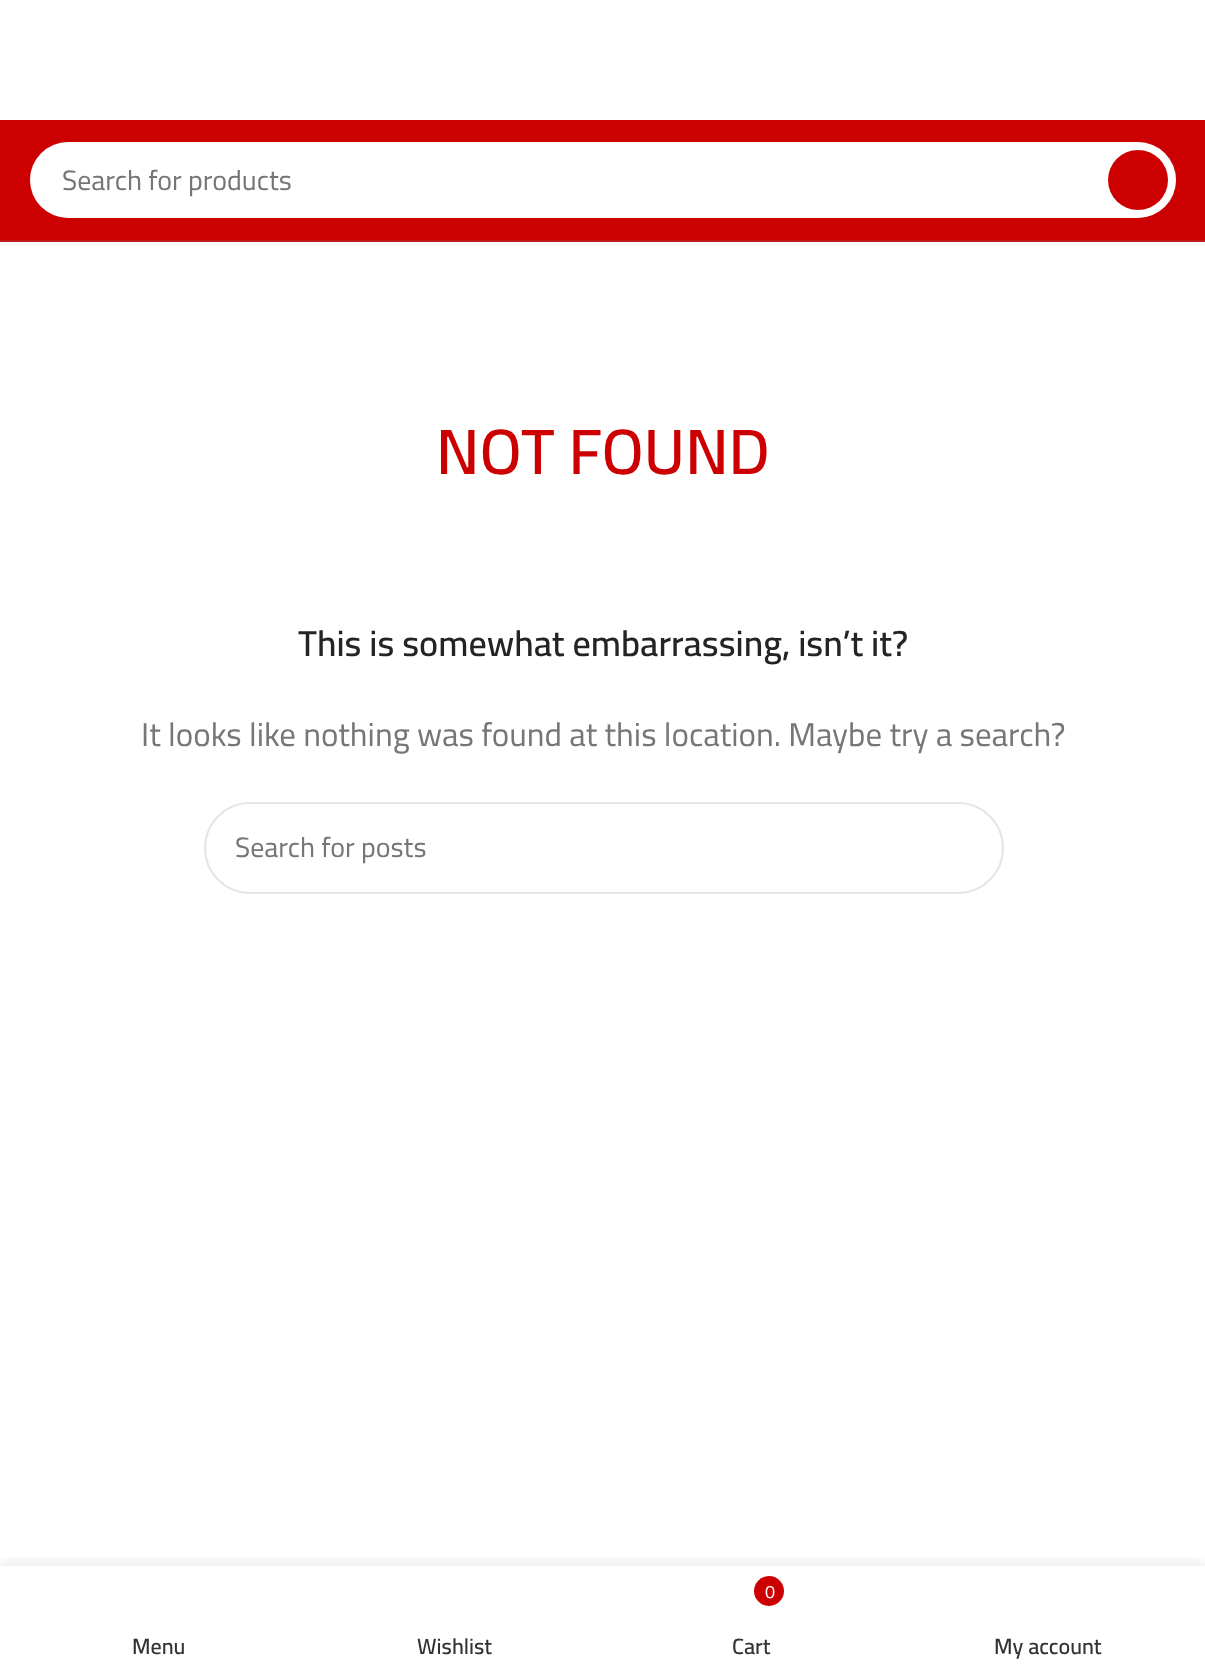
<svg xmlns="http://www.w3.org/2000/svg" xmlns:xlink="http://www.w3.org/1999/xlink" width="1205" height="1676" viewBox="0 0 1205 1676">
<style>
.cls-1{font:28px Cairo;fill:#767676}
.cls-2{font:600 64px Cairo;fill:#cc0000}
.cls-3{font:600 36px Cairo;fill:#242424}
.cls-4{font:33px Cairo;fill:#767676}
.cls-5{font:600 22px Cairo;fill:#333333}
.cls-6{font:18px Cairo;fill:#ffffff}
</style>
<defs>
<clipPath id="clip1"><rect x="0" y="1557" width="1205" height="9"/></clipPath>
</defs>
<rect width="100%" height="100%" fill="#ffffff"/>
<rect fill="#cc0000" x="0" y="120" width="1205" height="120"/>
<rect fill="#bd1a1a" x="0" y="240" width="1205" height="2"/>
<rect fill="#ffffff" x="30" y="142" width="1146" height="76" rx="38"/>
<rect fill="none" stroke="#ffffff" stroke-opacity="0.2" stroke-width="2" x="31" y="143" width="1144" height="74" rx="37"/>
<circle fill="#cc0000" cx="1138" cy="180" r="30"/>
<rect fill="none" stroke="#e6e6e6" stroke-width="2" x="205" y="803" width="798" height="90" rx="45"/>
<g clip-path="url(#clip1)">
<rect fill="#000000" fill-opacity="0.12" filter="blur(9px)" x="0" y="1566" width="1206" height="110"/>
</g>
<circle fill="#cc0000" cx="769" cy="1591" r="15"/>
<text class="cls-1" x="62" y="190">Search for products</text>
<text class="cls-2" x="436" y="474">NOT FOUND</text>
<text class="cls-3" x="298" y="656">This is somewhat embarrassing, isn’t it?</text>
<text class="cls-4" x="141" y="746">It looks like nothing was found at this location. Maybe try a search?</text>
<text class="cls-1" x="235" y="857">Search for posts</text>
<text class="cls-5" x="132" y="1654">Menu</text>
<text class="cls-5" x="417" y="1654">Wishlist</text>
<text class="cls-6" x="765" y="1598">0</text>
<text class="cls-5" x="732" y="1654">Cart</text>
<text class="cls-5" x="994" y="1654">My account</text>
</svg>
